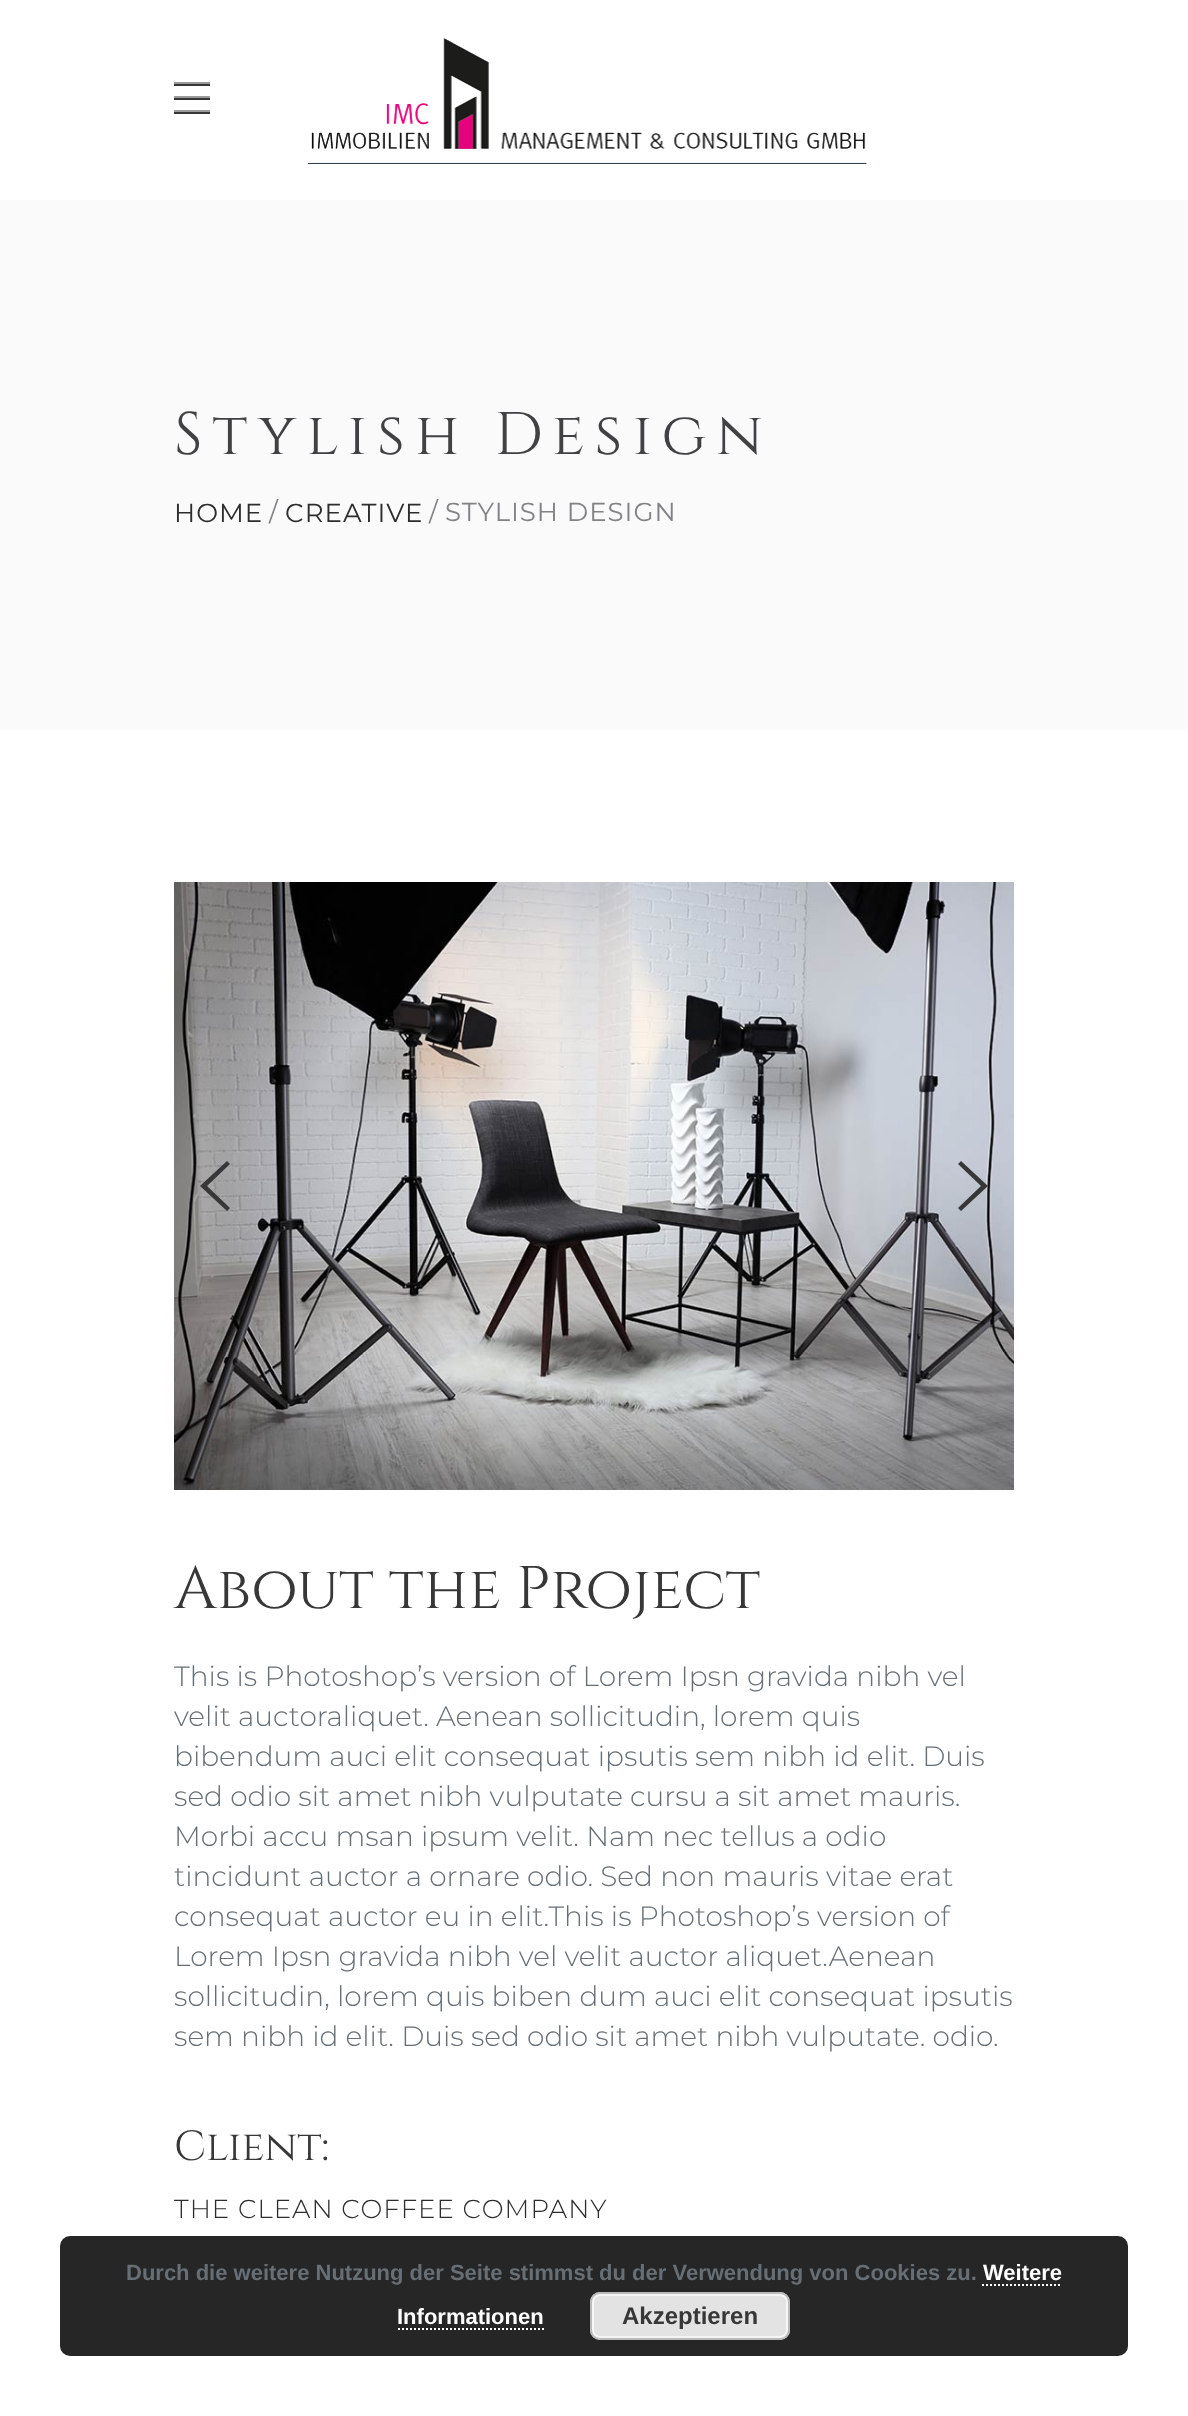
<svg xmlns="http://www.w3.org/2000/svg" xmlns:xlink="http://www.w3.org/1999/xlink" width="1188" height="2416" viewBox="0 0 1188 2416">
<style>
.cls-1{font:60px Cinzel;letter-spacing:10px;fill:#414042}
.cls-2{font:26px Montserrat;letter-spacing:1px;fill:#2d2d2d}
.cls-3{font:26px Montserrat;letter-spacing:1px;fill:#808285}
.cls-4{font:60px Cinzel;fill:#373737}
.cls-5{font:300 28px Montserrat;fill:#676f76}
.cls-6{font:42px Cinzel;fill:#373737}
.cls-7{font:300 26px Montserrat;letter-spacing:1px;fill:#2d2d2d}
.cls-8{font:bold 22px Liberation Sans;fill:#676f76}
.cls-9{font:bold 22px Liberation Sans;fill:#ffffff}
.cls-10{font:bold 24px Liberation Sans;fill:#373737}
</style>
<rect width="100%" height="100%" fill="#ffffff"/>
<rect fill="#373737" x="174" y="84" width="36" height="2"/>
<rect fill="#9b9b9b" x="174" y="82" width="36" height="2"/>
<rect fill="#373737" x="174" y="98" width="36" height="2"/>
<rect fill="#9b9b9b" x="174" y="96" width="36" height="2"/>
<rect fill="#373737" x="174" y="112" width="36" height="2"/>
<rect fill="#9b9b9b" x="174" y="110" width="36" height="2"/>
<image xlink:href="image0.png" x="308" y="38" width="560" height="126"/>
<rect fill="#fafafa" x="0" y="200" width="1188" height="530"/>
<image xlink:href="image1.png" x="174" y="882" width="840" height="608"/>
<path fill="#373737" d="M230 1164L207 1186L230 1208L227 1211L200 1186L227 1161Z"/>
<path fill="#373737" d="M958 1164L961 1161L988 1186L961 1211L958 1208L981 1186Z"/>
<rect fill="#000000" fill-opacity="0.85" x="60" y="2236" width="1068" height="120" rx="10"/>
<path fill="none" stroke="#ffffff" stroke-width="2" stroke-dasharray="2 2" d="M982 2285H1062"/>
<path fill="none" stroke="#ffffff" stroke-width="2" stroke-dasharray="2 2" d="M398 2329H544"/>
<rect fill="#e3e3e3" x="590" y="2292" width="200" height="48" rx="10"/>
<rect fill="none" stroke="#f6f6f6" stroke-width="2" x="593" y="2295" width="194" height="42" rx="7"/>
<rect fill="none" stroke="#bbbbbb" stroke-width="2" x="591" y="2293" width="198" height="46" rx="9"/>
<text class="cls-1" x="174" y="454">Stylish Design</text>
<text class="cls-2" x="174" y="522">HOME</text>
<text class="cls-3" x="269" y="521">/</text>
<text class="cls-2" x="285" y="522">CREATIVE</text>
<text class="cls-3" x="429" y="521">/</text>
<text class="cls-3" x="445" y="521">STYLISH DESIGN</text>
<text class="cls-4" x="174" y="1608">About the Project</text>
<text class="cls-5"><tspan x="174" y="1686">This is Photoshop’s version of Lorem Ipsn gravida nibh vel</tspan><tspan x="174" y="1726">velit auctoraliquet. Aenean sollicitudin, lorem quis</tspan><tspan x="174" y="1766">bibendum auci elit consequat ipsutis sem nibh id elit. Duis</tspan><tspan x="174" y="1806">sed odio sit amet nibh vulputate cursu a sit amet mauris.</tspan><tspan x="174" y="1846">Morbi accu msan ipsum velit. Nam nec tellus a odio</tspan><tspan x="174" y="1886">tincidunt auctor a ornare odio. Sed non mauris vitae erat</tspan><tspan x="174" y="1926">consequat auctor eu in elit.This is Photoshop’s version of</tspan><tspan x="174" y="1966">Lorem Ipsn gravida nibh vel velit auctor aliquet.Aenean</tspan><tspan x="174" y="2006">sollicitudin, lorem quis biben dum auci elit consequat ipsutis</tspan><tspan x="174" y="2046">sem nibh id elit. Duis sed odio sit amet nibh vulputate. odio.</tspan></text>
<text class="cls-6" x="174" y="2160">Client:</text>
<text class="cls-7" x="174" y="2218">THE CLEAN COFFEE COMPANY</text>
<text class="cls-8" x="126" y="2280">Durch die weitere Nutzung der Seite stimmst du der Verwendung von Cookies zu.</text>
<text class="cls-9" x="983" y="2280">Weitere</text>
<text class="cls-9" x="397" y="2324">Informationen</text>
<text class="cls-10" x="622" y="2324">Akzeptieren</text>
</svg>
